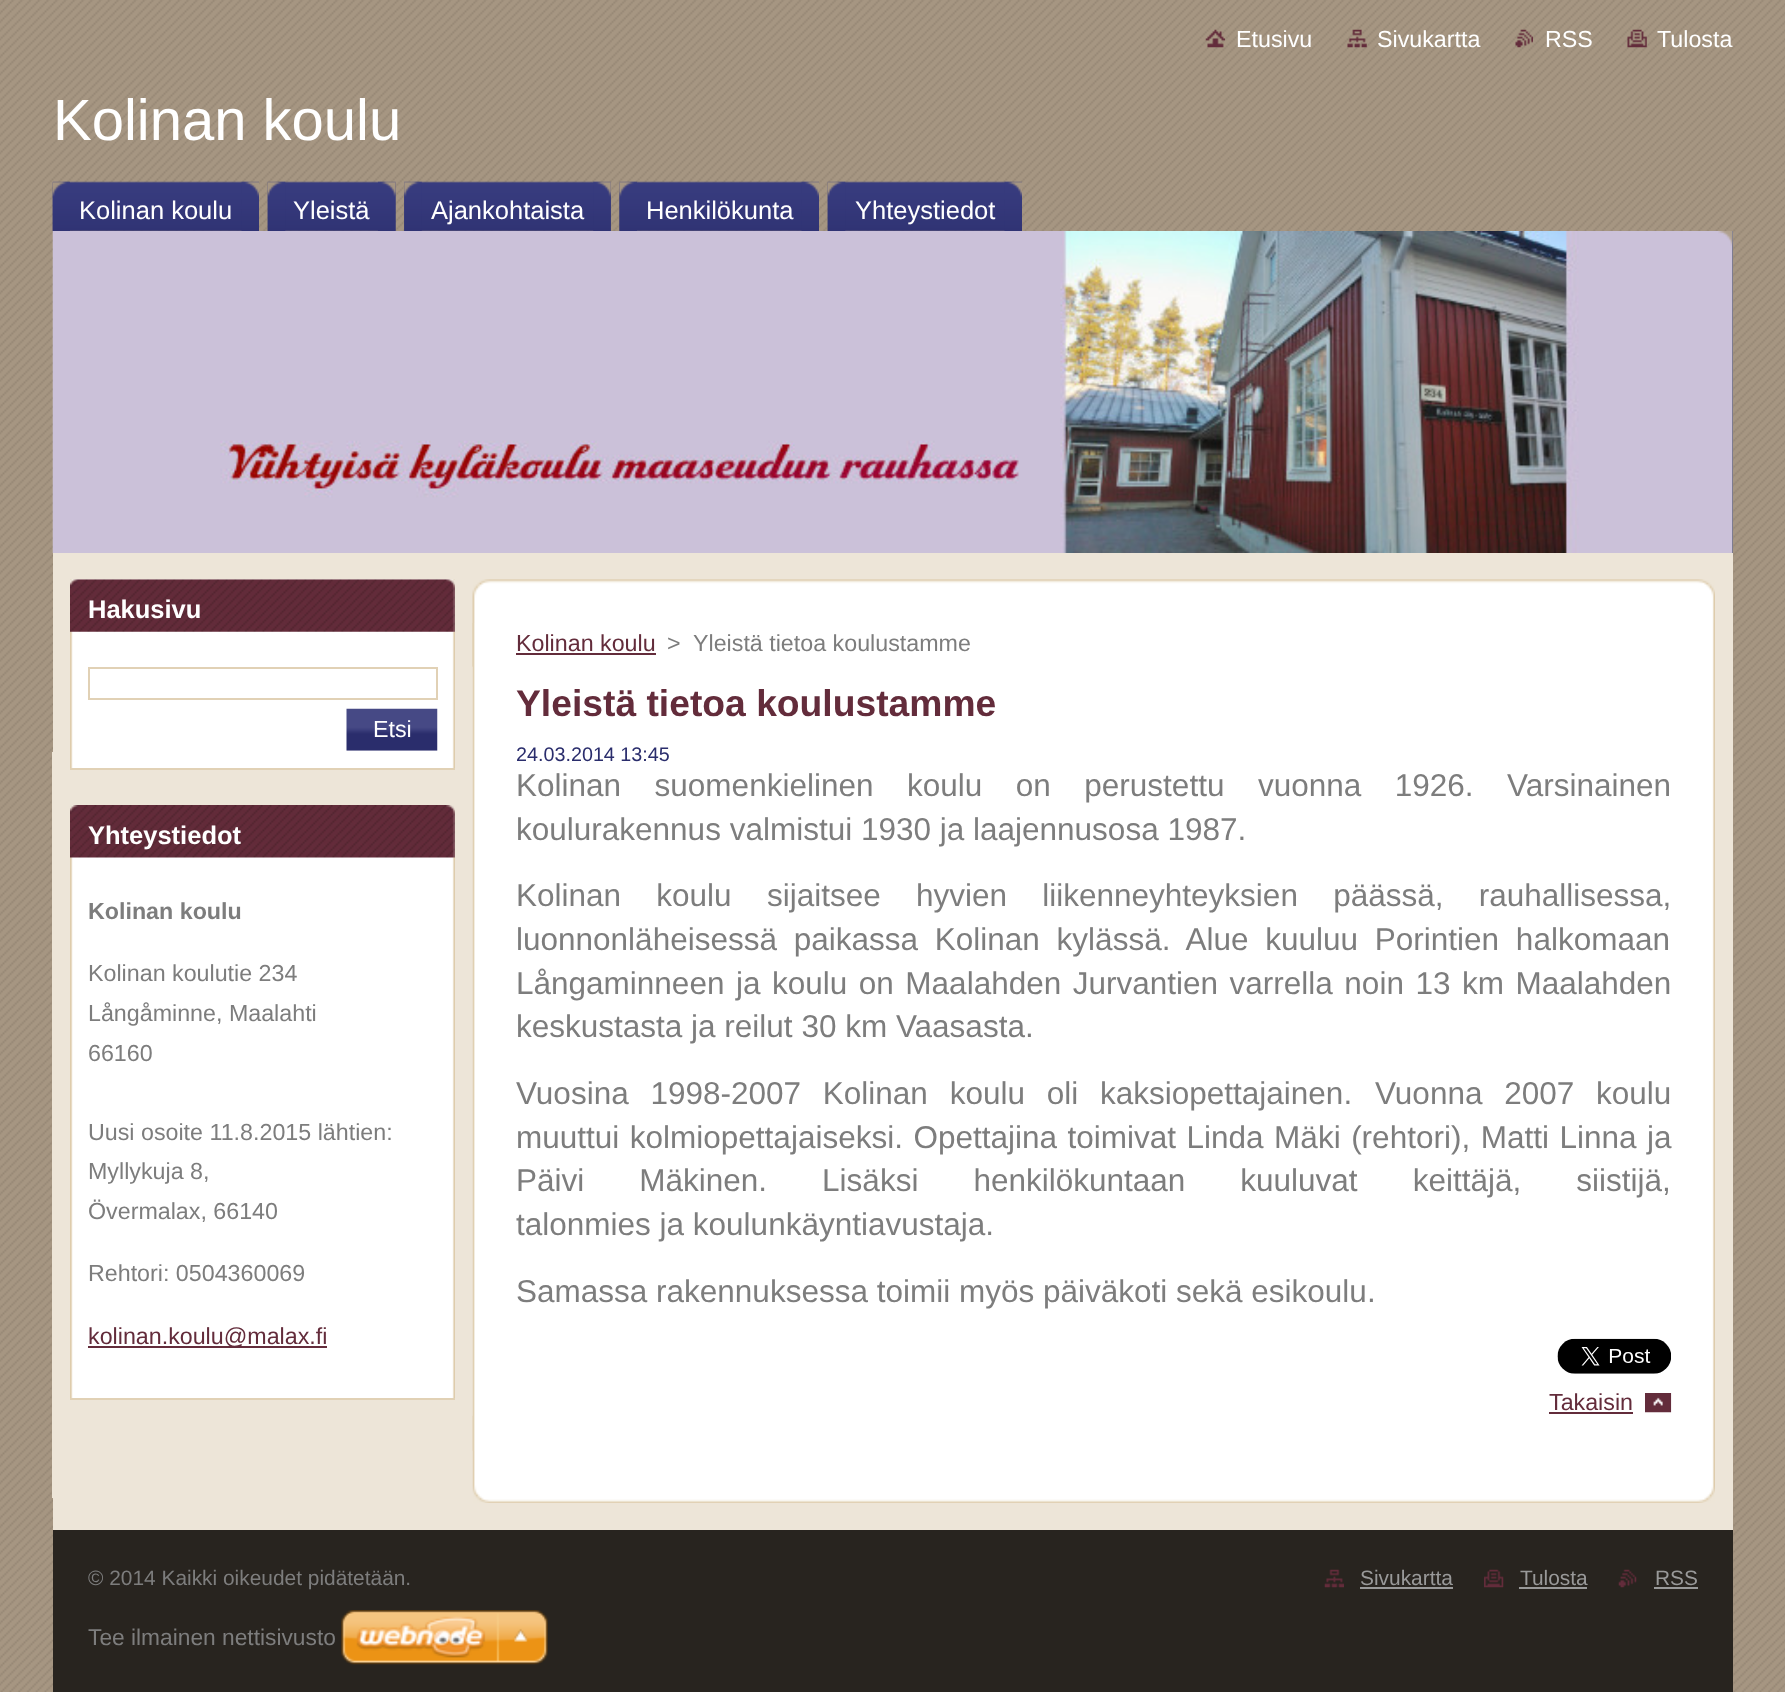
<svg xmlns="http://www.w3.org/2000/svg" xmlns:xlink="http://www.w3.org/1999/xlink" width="1785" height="1692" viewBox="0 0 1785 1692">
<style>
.cls-1{font:23.25px Liberation Sans;fill:#ffffff}
.cls-2{font:58px Liberation Sans;fill:#ffffff}
.cls-3{font:25.5px Liberation Sans;fill:#ffffff}
.cls-4{font:bold 25.5px Liberation Sans;fill:#ffffff}
.cls-5{font:bold 23.25px Liberation Sans;fill:#7d7d7d}
.cls-6{font:23.25px Liberation Sans;fill:#7d7d7d}
.cls-7{font:23.25px Liberation Sans;fill:#632c3b}
.cls-8{font:bold 37.25px Liberation Sans;fill:#632c3b}
.cls-9{font:19.75px Liberation Sans;fill:#2a2d6c}
.cls-10{font:31.5px Liberation Sans;fill:#7d7d7d}
.cls-11{font:20.9px Liberation Sans;fill:#7d7d7d}
.cls-12{font:20.9px Liberation Sans;fill:#999999}
.cls-13{font:22.75px Liberation Sans;fill:#7d7d7d}
</style>
<rect width="100%" height="100%" fill="#ffffff"/>
<image xlink:href="image0.png" x="0" y="0" width="1785" height="1692"/>
<rect fill="#ede5d7" x="52" y="752" width="1" height="746"/>
<image xlink:href="image1.png" x="1205" y="29" width="20" height="19"/>
<image xlink:href="image2.png" x="1347" y="29" width="20" height="19"/>
<image xlink:href="image3.png" x="1515" y="29" width="18" height="19"/>
<image xlink:href="image4.png" x="1627" y="29" width="20" height="19"/>
<image xlink:href="image5.png" x="52" y="181" width="207" height="50"/>
<image xlink:href="image6.png" x="52" y="181" width="18" height="50"/>
<image xlink:href="image7.png" x="241" y="181" width="18" height="50"/>
<image xlink:href="image8.png" x="267" y="181" width="129" height="50"/>
<image xlink:href="image9.png" x="267" y="181" width="19" height="50"/>
<image xlink:href="image10.png" x="378" y="181" width="18" height="50"/>
<image xlink:href="image11.png" x="404" y="181" width="207" height="50"/>
<image xlink:href="image12.png" x="404" y="181" width="18" height="50"/>
<image xlink:href="image13.png" x="593" y="181" width="18" height="50"/>
<image xlink:href="image14.png" x="619" y="181" width="200" height="50"/>
<image xlink:href="image15.png" x="619" y="181" width="18" height="50"/>
<image xlink:href="image16.png" x="801" y="181" width="18" height="50"/>
<image xlink:href="image17.png" x="827" y="181" width="195" height="50"/>
<image xlink:href="image18.png" x="827" y="181" width="19" height="50"/>
<image xlink:href="image19.png" x="1004" y="181" width="18" height="50"/>
<rect fill="#636479" x="1732" y="231" width="1" height="322"/>
<image xlink:href="image20.png" x="52" y="231" width="1681" height="322"/>
<image xlink:href="image21.png" x="1718" y="231" width="15" height="15"/>
<rect fill="#ede5d8" x="53" y="553" width="1680" height="977"/>
<image xlink:href="image22.png" x="70" y="579" width="385" height="189"/>
<rect fill="#e1d1b5" x="70" y="768" width="385" height="2"/>
<image xlink:href="image23.png" x="70" y="579" width="385" height="53"/>
<rect fill="none" stroke="#e1d1b5" stroke-width="2" x="89" y="668" width="348" height="31"/>
<image xlink:href="image24.png" x="346" y="708" width="92" height="43"/>
<image xlink:href="image25.png" x="70" y="857" width="385" height="541"/>
<rect fill="#e1d1b5" x="70" y="1398" width="385" height="2"/>
<image xlink:href="image26.png" x="70" y="805" width="385" height="53"/>
<rect fill="#632c3b" x="88" y="1346" width="190" height="2"/>
<rect fill="#632c3b" x="278" y="1346" width="49" height="2"/>
<image xlink:href="image27.png" x="472" y="579" width="1243" height="88"/>
<image xlink:href="image28.png" x="472" y="1415" width="1243" height="88"/>
<image xlink:href="image29.png" x="472" y="623" width="1243" height="828"/>
<rect fill="#632c3b" x="516" y="653" width="140" height="2"/>
<image xlink:href="image30.png" x="1557" y="1338" width="114" height="36"/>
<image xlink:href="image31.png" x="1645" y="1393" width="27" height="20"/>
<rect fill="#632c3b" x="1549" y="1412" width="84" height="2"/>
<rect fill="#28241f" x="53" y="1530" width="1680" height="162"/>
<image xlink:href="image32.png" x="1324" y="1569" width="20" height="19"/>
<rect fill="#999999" x="1360" y="1587" width="93" height="2"/>
<image xlink:href="image33.png" x="1484" y="1569" width="20" height="19"/>
<rect fill="#999999" x="1519" y="1587" width="68" height="2"/>
<image xlink:href="image34.png" x="1618" y="1569" width="19" height="19"/>
<rect fill="#999999" x="1654" y="1587" width="44" height="2"/>
<image xlink:href="image35.png" x="341" y="1610" width="207" height="55"/>
<text class="cls-1" x="1236" y="47">Etusivu</text>
<text class="cls-1" x="1377" y="47">Sivukartta</text>
<text class="cls-1" x="1545" y="47">RSS</text>
<text class="cls-1" x="1657" y="47">Tulosta</text>
<text class="cls-2" x="53" y="140">Kolinan koulu</text>
<text class="cls-3" x="79" y="219">Kolinan koulu</text>
<text class="cls-3" x="293" y="219">Yleistä</text>
<text class="cls-3" x="431" y="219">Ajankohtaista</text>
<text class="cls-3" x="646" y="219">Henkilökunta</text>
<text class="cls-3" x="855" y="219">Yhteystiedot</text>
<text class="cls-4" x="88" y="618">Hakusivu</text>
<text class="cls-1" x="373" y="737">Etsi</text>
<text class="cls-4" x="88" y="844">Yhteystiedot</text>
<text class="cls-5" x="88" y="919">Kolinan koulu</text>
<text class="cls-6"><tspan x="88" y="981">Kolinan koulutie 234</tspan><tspan x="88" y="1021">Långåminne, Maalahti</tspan><tspan x="88" y="1061">66160</tspan></text>
<text class="cls-6"><tspan x="88" y="1140">Uusi osoite 11.8.2015 lähtien:</tspan><tspan x="88" y="1179">Myllykuja 8,</tspan><tspan x="88" y="1219">Övermalax, 66140</tspan></text>
<text class="cls-6" x="88" y="1281">Rehtori: 0504360069</text>
<text class="cls-7" x="88" y="1344">kolinan.koulu@malax.fi</text>
<text class="cls-7" x="516" y="651">Kolinan koulu</text>
<text class="cls-6" x="667" y="651">&gt;</text>
<text class="cls-6" x="693" y="651">Yleistä tietoa koulustamme</text>
<text class="cls-8" x="516" y="716">Yleistä tietoa koulustamme</text>
<text class="cls-9" x="516" y="761">24.03.2014 13:45</text>
<text class="cls-10"><tspan x="516" y="796" word-spacing="24.75">Kolinan suomenkielinen koulu on perustettu vuonna 1926. Varsinainen</tspan><tspan x="516" y="840">koulurakennus valmistui 1930 ja laajennusosa 1987.</tspan></text>
<text class="cls-10"><tspan x="516" y="906" word-spacing="26.5">Kolinan koulu sijaitsee hyvien liikenneyhteyksien päässä, rauhallisessa,</tspan><tspan x="516" y="950" word-spacing="8">luonnonläheisessä paikassa Kolinan kylässä. Alue kuuluu Porintien halkomaan</tspan><tspan x="516" y="994">Långaminneen</tspan></text>
<text class="cls-10" x="736" y="994" word-spacing="2.75">ja koulu on Maalahden Jurvantien varrella noin 13 km Maalahden</text>
<text class="cls-10" x="516" y="1037">keskustasta ja reilut 30 km Vaasasta.</text>
<text class="cls-10" x="516" y="1104" word-spacing="13">Vuosina 1998-2007 Kolinan koulu oli kaksiopettajainen.</text>
<text class="cls-10" x="1375" y="1104" word-spacing="13">Vuonna 2007 koulu</text>
<text class="cls-10"><tspan x="516" y="1148" word-spacing="1.75">muuttui kolmiopettajaiseksi. Opettajina toimivat Linda Mäki (rehtori), Matti Linna ja</tspan><tspan x="516" y="1191" word-spacing="46.25">Päivi Mäkinen. Lisäksi henkilökuntaan kuuluvat keittäjä, siistijä,</tspan><tspan x="516" y="1235">talonmies ja koulunkäyntiavustaja.</tspan></text>
<text class="cls-10" x="516" y="1302">Samassa rakennuksessa toimii myös päiväkoti sekä esikoulu.</text>
<text class="cls-7" x="1549" y="1410">Takaisin</text>
<text class="cls-11" x="88" y="1585">© 2014 Kaikki oikeudet pidätetään.</text>
<text class="cls-12" x="1360" y="1585">Sivukartta</text>
<text class="cls-12" x="1520" y="1585">Tulosta</text>
<text class="cls-12" x="1655" y="1585">RSS</text>
<text class="cls-13" x="88" y="1645">Tee ilmainen nettisivusto</text>
</svg>
